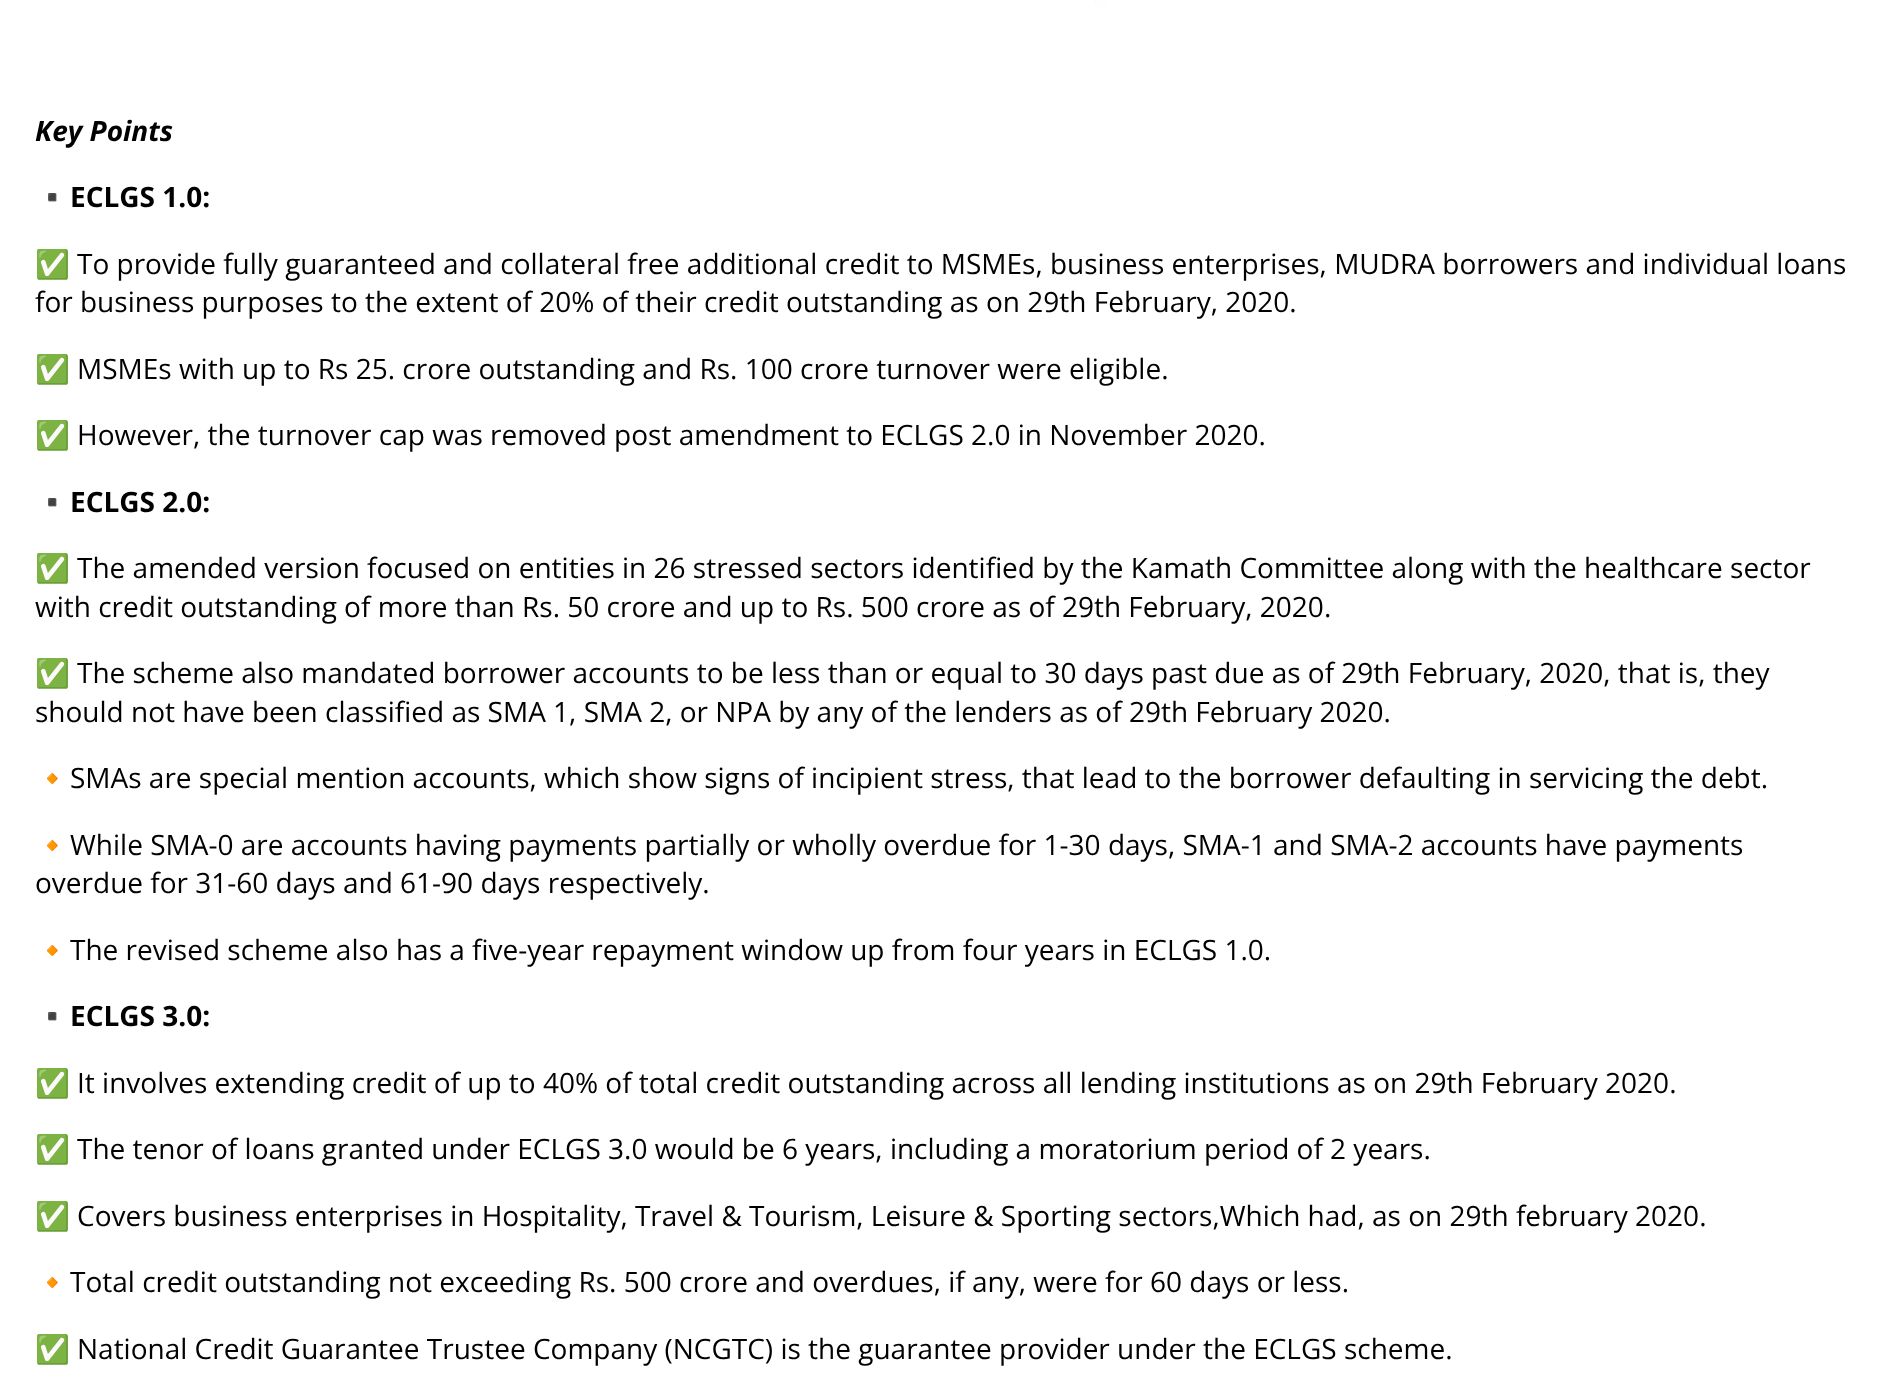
<svg xmlns="http://www.w3.org/2000/svg" xmlns:xlink="http://www.w3.org/1999/xlink" width="1885" height="1385" viewBox="0 0 1885 1385">
<style>
.cls-1{font:italic bold 28px Open Sans;fill:#000000}
.cls-2{font:bold 28px Noto Color Emoji;fill:#000000}
.cls-3{font:bold 28px Open Sans;fill:#000000}
.cls-4{font:28px Noto Color Emoji;fill:#000000}
.cls-5{font:28px Open Sans;fill:#000000}
</style>
<rect width="100%" height="100%" fill="#ffffff"/>
<image xlink:href="image0.png" x="1093" y="0" width="16" height="8"/>
<text class="cls-1" x="35" y="141">Key Points</text>
<text class="cls-2" x="35" y="207">▪️</text>
<text class="cls-3" x="70" y="207">ECLGS 1.0:</text>
<text class="cls-4" x="35" y="274">✅</text>
<text class="cls-5" x="77" y="274">To provide fully guaranteed and collateral free additional credit to MSMEs, business enterprises, MUDRA borrowers and individual loans</text>
<text class="cls-5" x="35" y="312">for business purposes to the extent of 20% of their credit outstanding as on 29th February, 2020.</text>
<text class="cls-4" x="35" y="379">✅</text>
<text class="cls-5" x="77" y="379">MSMEs with up to Rs 25. crore outstanding and Rs. 100 crore turnover were eligible.</text>
<text class="cls-4" x="35" y="445">✅</text>
<text class="cls-5" x="77" y="445">However, the turnover cap was removed post amendment to ECLGS 2.0 in November 2020.</text>
<text class="cls-2" x="35" y="512">▪️</text>
<text class="cls-3" x="70" y="512">ECLGS 2.0:</text>
<text class="cls-4" x="35" y="578">✅</text>
<text class="cls-5" x="77" y="578">The amended version focused on entities in 26 stressed sectors identified by the Kamath Committee along with the healthcare sector</text>
<text class="cls-5" x="35" y="617">with credit outstanding of more than Rs. 50 crore and up to Rs. 500 crore as of 29th February, 2020.</text>
<text class="cls-4" x="35" y="683">✅</text>
<text class="cls-5" x="77" y="683">The scheme also mandated borrower accounts to be less than or equal to 30 days past due as of 29th February, 2020, that is, they</text>
<text class="cls-5" x="35" y="722">should not have been classified as SMA 1, SMA 2, or NPA by any of the lenders as of 29th February 2020.</text>
<text class="cls-4" x="35" y="788">🔸</text>
<text class="cls-5" x="70" y="788">SMAs are special mention accounts, which show signs of incipient stress, that lead to the borrower defaulting in servicing the debt.</text>
<text class="cls-4" x="35" y="855">🔸</text>
<text class="cls-5" x="70" y="855">While SMA-0 are accounts having payments partially or wholly overdue for 1-30 days, SMA-1 and SMA-2 accounts have payments</text>
<text class="cls-5" x="35" y="893">overdue for 31-60 days and 61-90 days respectively.</text>
<text class="cls-4" x="35" y="960">🔸</text>
<text class="cls-5" x="70" y="960">The revised scheme also has a five-year repayment window up from four years in ECLGS 1.0.</text>
<text class="cls-2" x="35" y="1026">▪️</text>
<text class="cls-3" x="70" y="1026">ECLGS 3.0:</text>
<text class="cls-4" x="35" y="1093">✅</text>
<text class="cls-5" x="77" y="1093">It involves extending credit of up to 40% of total credit outstanding across all lending institutions as on 29th February 2020.</text>
<text class="cls-4" x="35" y="1159">✅</text>
<text class="cls-5" x="77" y="1159">The tenor of loans granted under ECLGS 3.0 would be 6 years, including a moratorium period of 2 years.</text>
<text class="cls-4" x="35" y="1226">✅</text>
<text class="cls-5" x="77" y="1226">Covers business enterprises in Hospitality, Travel &amp; Tourism, Leisure &amp; Sporting sectors,Which had, as on 29th february 2020.</text>
<text class="cls-4" x="35" y="1292">🔸</text>
<text class="cls-5" x="70" y="1292">Total credit outstanding not exceeding Rs. 500 crore and overdues, if any, were for 60 days or less.</text>
<text class="cls-4" x="35" y="1359">✅</text>
<text class="cls-5" x="77" y="1359">National Credit Guarantee Trustee Company (NCGTC) is the guarantee provider under the ECLGS scheme.</text>
</svg>
